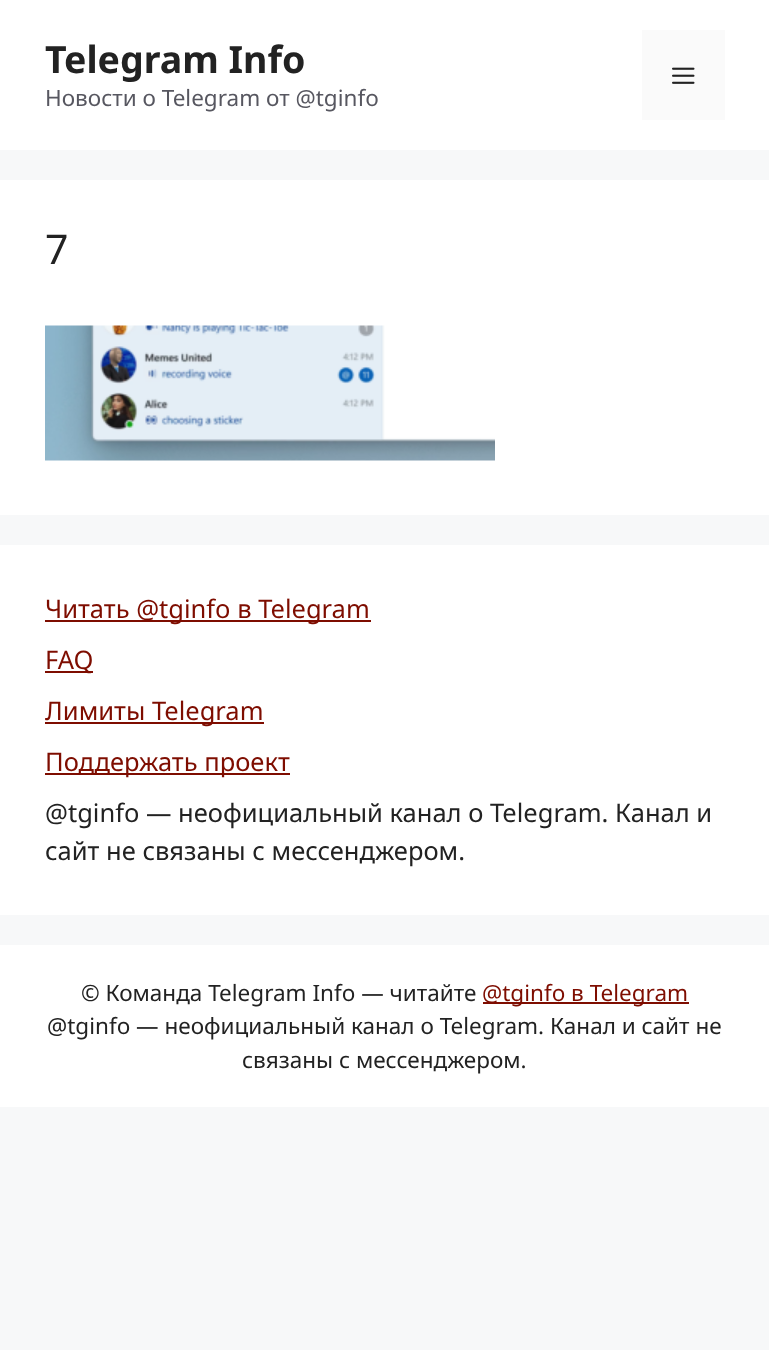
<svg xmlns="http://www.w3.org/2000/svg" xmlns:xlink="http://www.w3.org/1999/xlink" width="769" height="1350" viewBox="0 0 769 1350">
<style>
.cls-1{font:bold 37.5px Noto Sans;fill:#222222}
.cls-2{font:22.5px Noto Sans;fill:#575760}
.cls-3{font:41px Noto Sans;fill:#222222}
.cls-4{font:25.5px Noto Sans;fill:#7e0d00}
.cls-5{font:25.5px Noto Sans;fill:#222222}
.cls-6{font:22.5px Noto Sans;fill:#222222}
.cls-7{font:22.5px Noto Sans;fill:#7e0d00}
</style>
<rect width="100%" height="100%" fill="#f7f8f9"/>
<rect fill="#ffffff" x="0" y="0" width="769" height="150"/>
<rect fill="#fafafa" x="642" y="30" width="83" height="90"/>
<image xlink:href="image0.png" x="672" y="67" width="23" height="17"/>
<rect fill="#ffffff" x="0" y="180" width="769" height="335"/>
<image xlink:href="image1.png" x="45" y="325" width="450" height="136"/>
<rect fill="#ffffff" x="0" y="545" width="769" height="370"/>
<rect fill="#7e0d00" x="45" y="620" width="326" height="2"/>
<rect fill="#7e0d00" x="45" y="671" width="48" height="2"/>
<rect fill="#7e0d00" x="45" y="722" width="219" height="2"/>
<rect fill="#7e0d00" x="45" y="773" width="245" height="2"/>
<rect fill="#ffffff" x="0" y="945" width="769" height="162"/>
<rect fill="#7e0d00" x="483" y="1002" width="206" height="2"/>
<text class="cls-1" x="45" y="73">Telegram Info</text>
<text class="cls-2" x="45" y="106">Новости о Telegram от @tginfo</text>
<text class="cls-3" x="45" y="264">7</text>
<text class="cls-4" x="45" y="618">Читать @tginfo в Telegram</text>
<text class="cls-4" x="45" y="669">FAQ</text>
<text class="cls-4" x="45" y="720">Лимиты Telegram</text>
<text class="cls-4" x="45" y="771">Поддержать проект</text>
<text class="cls-5"><tspan x="45" y="822">@tginfo — неофициальный канал о Telegram. Канал и</tspan><tspan x="45" y="860">сайт не связаны с мессенджером.</tspan></text>
<text class="cls-6" x="81" y="1001">© Команда Telegram Info — читайте</text>
<text class="cls-7" x="482" y="1001">@tginfo в Telegram</text>
<text class="cls-6" x="47" y="1034">@tginfo — неофициальный канал о Telegram. Канал и сайт не</text>
<text class="cls-6" x="242" y="1068">связаны с мессенджером.</text>
</svg>
